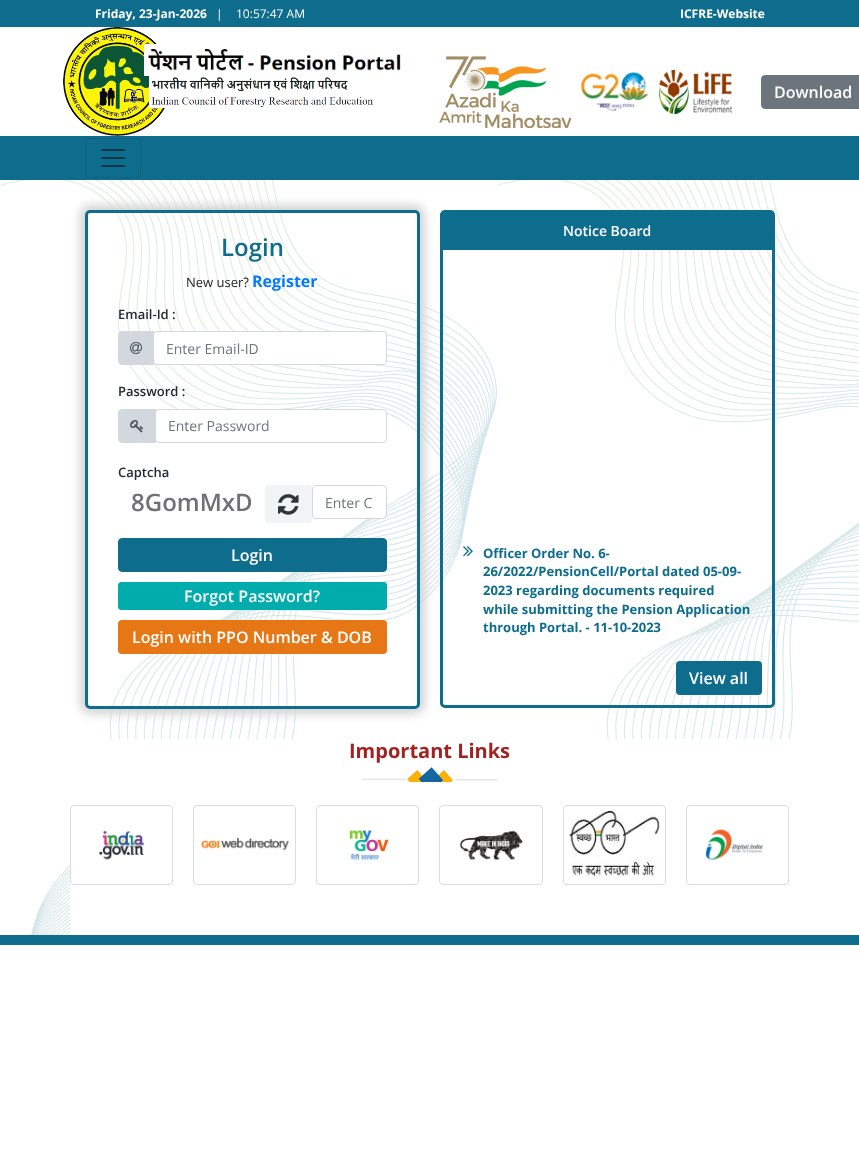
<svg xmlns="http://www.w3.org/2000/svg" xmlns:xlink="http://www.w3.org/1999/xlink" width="859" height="1164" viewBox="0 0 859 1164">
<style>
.cls-1{font:bold 12px Open Sans;fill:#ffffff}
.cls-2{font:12px Open Sans;fill:#ffffff}
.cls-3{font:600 16px Open Sans;fill:#ffffff}
.cls-4{font:600 24px Open Sans;fill:#0e6d8c}
.cls-5{font:13px Open Sans;fill:#222222}
.cls-6{font:bold 16px Open Sans;fill:#007bff}
.cls-7{font:600 13px Open Sans;fill:#242a30}
.cls-8{font:14px Open Sans;fill:#6c757d}
.cls-9{font:600 24px Open Sans;fill:#6f7174}
.cls-10{font:600 14px Open Sans;fill:#ffffff}
.cls-11{font:bold 13px Open Sans;fill:#0e6d8c}
.cls-12{font:bold 20px Open Sans;fill:#a22222}
</style>
<defs>
<clipPath id="clip1"><path d="M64 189H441V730H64ZM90 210H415C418 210 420 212 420 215V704C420 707 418 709 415 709H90C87 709 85 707 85 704V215C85 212 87 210 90 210Z" clip-rule="evenodd"/></clipPath>
</defs>
<rect width="100%" height="100%" fill="#ffffff"/>
<rect fill="#0e6d8c" x="0" y="0" width="859" height="27"/>
<image xlink:href="image0.png" x="63" y="27" width="102" height="109"/>
<image xlink:href="image1.png" x="144" y="44" width="257" height="32"/>
<image xlink:href="image2.png" x="149" y="76" width="224" height="32"/>
<image xlink:href="image3.png" x="439" y="56" width="132" height="72"/>
<image xlink:href="image4.png" x="580" y="72" width="69" height="40"/>
<image xlink:href="image5.png" x="659" y="70" width="73" height="44"/>
<rect fill="#6c757d" stroke="#6c757d" x="761.5" y="75.5" width="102" height="33" rx="3.5"/>
<rect fill="#0e6d8c" x="0" y="136" width="859" height="44"/>
<rect fill="none" stroke="#0d627e" x="85.5" y="138.5" width="55" height="39" rx="3.5"/>
<image xlink:href="image6.png" x="101" y="149" width="24" height="18"/>
<image xlink:href="image7.png" x="0" y="180" width="859" height="755"/>
<g clip-path="url(#clip1)">
<rect fill="#d3d3d3" filter="blur(5px)" x="80" y="205" width="345" height="509" rx="10"/>
</g>
<rect fill="none" stroke="#0e6d8c" stroke-width="3" x="86.5" y="211.5" width="332" height="496" rx="3.5"/>
<path fill="#d3d8df" d="M122 331H154V365H122C120 365 118 363 118 361V335C118 333 120 331 122 331Z"/>
<image xlink:href="image8.png" x="130" y="342" width="12" height="12"/>
<rect fill="#ffffff" stroke="#d3d8de" x="153.5" y="331.5" width="233" height="33" rx="3.5"/>
<path fill="#d3d8df" d="M122 409H156V443H122C120 443 118 441 118 439V413C118 411 120 409 122 409Z"/>
<image xlink:href="image9.png" x="130" y="420" width="14" height="13"/>
<rect fill="#ffffff" stroke="#d3d8de" x="155.5" y="409.5" width="231" height="33" rx="3.5"/>
<rect fill="#f2f3f4" stroke="#f2f3f4" x="265.5" y="485.5" width="46" height="37" rx="3.5"/>
<image xlink:href="image10.png" x="278" y="494" width="21" height="21"/>
<rect fill="#ffffff" stroke="#d3d8de" x="312.5" y="485.5" width="74" height="33" rx="3.5"/>
<rect fill="#0e6d8c" stroke="#0e6d8c" x="118.5" y="538.5" width="268" height="33" rx="3.5"/>
<rect fill="#00acac" stroke="#00acac" x="118.5" y="582.5" width="268" height="27" rx="2.5"/>
<rect fill="#e77615" x="118" y="620" width="269" height="34" rx="4"/>
<rect fill="none" stroke="#0e6d8c" stroke-width="3" x="441.5" y="211.5" width="332" height="495" rx="3.5"/>
<rect fill="#0e6d8c" x="443" y="213" width="329" height="37"/>
<image xlink:href="image11.png" x="463" y="546" width="10" height="11"/>
<rect fill="#0e6d8c" x="676" y="661" width="86" height="34" rx="4"/>
<rect fill="#ffffff" x="70" y="739" width="720" height="196"/>
<image xlink:href="image12.png" x="362" y="767" width="136" height="15"/>
<rect fill="none" stroke="#dddddd" x="70.5" y="805.5" width="102" height="79" rx="3.5"/>
<image xlink:href="image13.png" x="99" y="830" width="45" height="30"/>
<rect fill="none" stroke="#dddddd" x="193.5" y="805.5" width="102" height="79" rx="3.5"/>
<image xlink:href="image14.png" x="200" y="838" width="90" height="13"/>
<rect fill="none" stroke="#dddddd" x="316.5" y="805.5" width="102" height="79" rx="3.5"/>
<image xlink:href="image15.png" x="349" y="830" width="40" height="31"/>
<rect fill="none" stroke="#dddddd" x="439.5" y="805.5" width="103" height="79" rx="3.5"/>
<image xlink:href="image16.png" x="460" y="830" width="63" height="30"/>
<rect fill="none" stroke="#dddddd" x="563.5" y="805.5" width="102" height="79" rx="3.5"/>
<image xlink:href="image17.png" x="568" y="810" width="93" height="68"/>
<rect fill="none" stroke="#dddddd" x="686.5" y="805.5" width="102" height="79" rx="3.5"/>
<image xlink:href="image18.png" x="705" y="829" width="58" height="31"/>
<rect fill="#0e6d8c" x="0" y="935" width="859" height="10"/>
<text class="cls-1" x="95" y="18">Friday, 23-Jan-2026</text>
<text class="cls-2" x="216" y="18">|</text>
<text class="cls-2" x="236" y="18">10:57:47 AM</text>
<text class="cls-1" x="680" y="18">ICFRE-Website</text>
<text class="cls-3" x="774" y="98">Download</text>
<text class="cls-4" x="221" y="256">Login</text>
<text class="cls-5" x="186" y="287">New user?</text>
<text class="cls-6" x="252" y="287">Register</text>
<text class="cls-7" x="118" y="319">Email-Id :</text>
<text class="cls-8" x="166" y="354">Enter Email-ID</text>
<text class="cls-7" x="118" y="396">Password :</text>
<text class="cls-8" x="168" y="431">Enter Password</text>
<text class="cls-7" x="118" y="477">Captcha</text>
<text class="cls-9" x="131" y="511">8GomMxD</text>
<text class="cls-8" x="325" y="508">Enter C</text>
<text class="cls-3" x="231" y="561">Login</text>
<text class="cls-3" x="184" y="602">Forgot Password?</text>
<text class="cls-3" x="132" y="643">Login with PPO Number &amp; DOB</text>
<text class="cls-10" x="563" y="236">Notice Board</text>
<text class="cls-11"><tspan x="483" y="558">Officer Order No. 6-</tspan><tspan x="483" y="576">26/2022/PensionCell/Portal dated 05-09-</tspan><tspan x="483" y="595">2023 regarding documents required</tspan><tspan x="483" y="614">while submitting the Pension Application</tspan><tspan x="483" y="632">through Portal. - 11-10-2023</tspan></text>
<text class="cls-3" x="689" y="684">View all</text>
<text class="cls-12" x="349" y="758">Important Links</text>
</svg>
